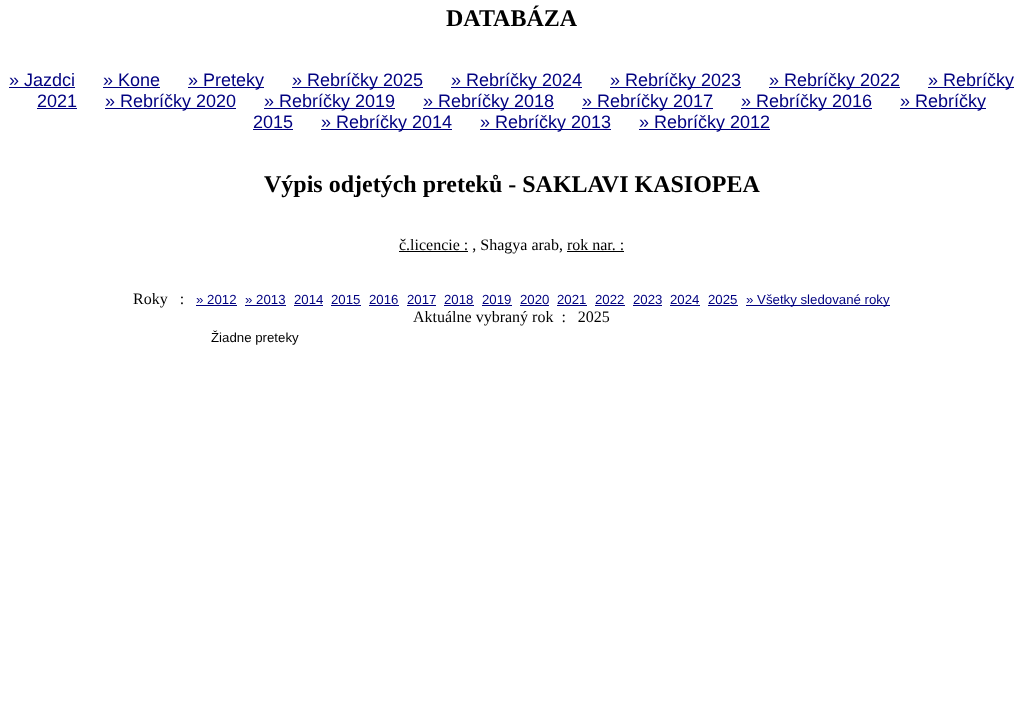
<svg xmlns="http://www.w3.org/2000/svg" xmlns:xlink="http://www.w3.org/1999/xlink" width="1023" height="706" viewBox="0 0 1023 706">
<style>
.cls-1{font:bold 24px Liberation Serif;fill:#000000}
.cls-2{font:18px Liberation Sans;fill:#000080}
.cls-3{font:16px Liberation Serif;fill:#000000}
.cls-4{font:13.25px Liberation Sans;fill:#000080}
.cls-5{font:13.25px Liberation Sans;fill:#000000}
</style>
<rect width="100%" height="100%" fill="#ffffff"/>
<rect fill="#000080" x="9" y="87" width="66" height="1"/>
<rect fill="#000080" x="103" y="87" width="57" height="1"/>
<rect fill="#000080" x="188" y="87" width="76" height="1"/>
<rect fill="#000080" x="292" y="87" width="131" height="1"/>
<rect fill="#000080" x="451" y="87" width="131" height="1"/>
<rect fill="#000080" x="610" y="87" width="131" height="1"/>
<rect fill="#000080" x="769" y="87" width="131" height="1"/>
<rect fill="#000080" x="928" y="87" width="86" height="1"/>
<rect fill="#000080" x="37" y="108" width="40" height="1"/>
<rect fill="#000080" x="105" y="108" width="131" height="1"/>
<rect fill="#000080" x="264" y="108" width="131" height="1"/>
<rect fill="#000080" x="423" y="108" width="131" height="1"/>
<rect fill="#000080" x="582" y="108" width="131" height="1"/>
<rect fill="#000080" x="741" y="108" width="131" height="1"/>
<rect fill="#000080" x="900" y="108" width="86" height="1"/>
<rect fill="#000080" x="253" y="129" width="40" height="1"/>
<rect fill="#000080" x="321" y="129" width="131" height="1"/>
<rect fill="#000080" x="480" y="129" width="131" height="1"/>
<rect fill="#000080" x="639" y="129" width="131" height="1"/>
<rect fill="#000000" x="399" y="251" width="69" height="1"/>
<rect fill="#000000" x="567" y="251" width="57" height="1"/>
<rect fill="#000080" x="196" y="305" width="41" height="1"/>
<rect fill="#000080" x="245" y="305" width="41" height="1"/>
<rect fill="#000080" x="294" y="305" width="29" height="1"/>
<rect fill="#000080" x="331" y="305" width="30" height="1"/>
<rect fill="#000080" x="369" y="305" width="30" height="1"/>
<rect fill="#000080" x="407" y="305" width="29" height="1"/>
<rect fill="#000080" x="444" y="305" width="30" height="1"/>
<rect fill="#000080" x="482" y="305" width="30" height="1"/>
<rect fill="#000080" x="520" y="305" width="29" height="1"/>
<rect fill="#000080" x="557" y="305" width="30" height="1"/>
<rect fill="#000080" x="595" y="305" width="30" height="1"/>
<rect fill="#000080" x="633" y="305" width="29" height="1"/>
<rect fill="#000080" x="670" y="305" width="30" height="1"/>
<rect fill="#000080" x="708" y="305" width="30" height="1"/>
<rect fill="#000080" x="746" y="305" width="144" height="1"/>
<text class="cls-1" x="446" y="26">DATABÁZA</text>
<text class="cls-2" x="9" y="86">» Jazdci</text>
<text class="cls-2" x="103" y="86">» Kone</text>
<text class="cls-2" x="188" y="86">» Preteky</text>
<text class="cls-2" x="292" y="86">» Rebríčky 2025</text>
<text class="cls-2" x="451" y="86">» Rebríčky 2024</text>
<text class="cls-2" x="610" y="86">» Rebríčky 2023</text>
<text class="cls-2" x="769" y="86">» Rebríčky 2022</text>
<text class="cls-2" x="928" y="86">» Rebríčky</text>
<text class="cls-2" x="37" y="107">2021</text>
<text class="cls-2" x="105" y="107">» Rebríčky 2020</text>
<text class="cls-2" x="264" y="107">» Rebríčky 2019</text>
<text class="cls-2" x="423" y="107">» Rebríčky 2018</text>
<text class="cls-2" x="582" y="107">» Rebríčky 2017</text>
<text class="cls-2" x="741" y="107">» Rebríčky 2016</text>
<text class="cls-2" x="900" y="107">» Rebríčky</text>
<text class="cls-2" x="253" y="128">2015</text>
<text class="cls-2" x="321" y="128">» Rebríčky 2014</text>
<text class="cls-2" x="480" y="128">» Rebríčky 2013</text>
<text class="cls-2" x="639" y="128">» Rebríčky 2012</text>
<text class="cls-1" x="264" y="192">Výpis odjetých preteků - SAKLAVI KASIOPEA</text>
<text class="cls-3" x="399" y="250">č.licencie : , Shagya arab, rok nar. :</text>
<text class="cls-3" xml:space="preserve" x="133" y="304">Roky   :</text>
<text class="cls-4" x="196" y="304">» 2012</text>
<text class="cls-4" x="245" y="304">» 2013</text>
<text class="cls-4" x="294" y="304">2014</text>
<text class="cls-4" x="331" y="304">2015</text>
<text class="cls-4" x="369" y="304">2016</text>
<text class="cls-4" x="407" y="304">2017</text>
<text class="cls-4" x="444" y="304">2018</text>
<text class="cls-4" x="482" y="304">2019</text>
<text class="cls-4" x="520" y="304">2020</text>
<text class="cls-4" x="557" y="304">2021</text>
<text class="cls-4" x="595" y="304">2022</text>
<text class="cls-4" x="633" y="304">2023</text>
<text class="cls-4" x="670" y="304">2024</text>
<text class="cls-4" x="708" y="304">2025</text>
<text class="cls-4" x="746" y="304">» Všetky sledované roky</text>
<text class="cls-3" xml:space="preserve" x="413" y="322">Aktuálne vybraný rok  :   2025</text>
<text class="cls-5" x="211" y="342">Žiadne preteky</text>
</svg>
